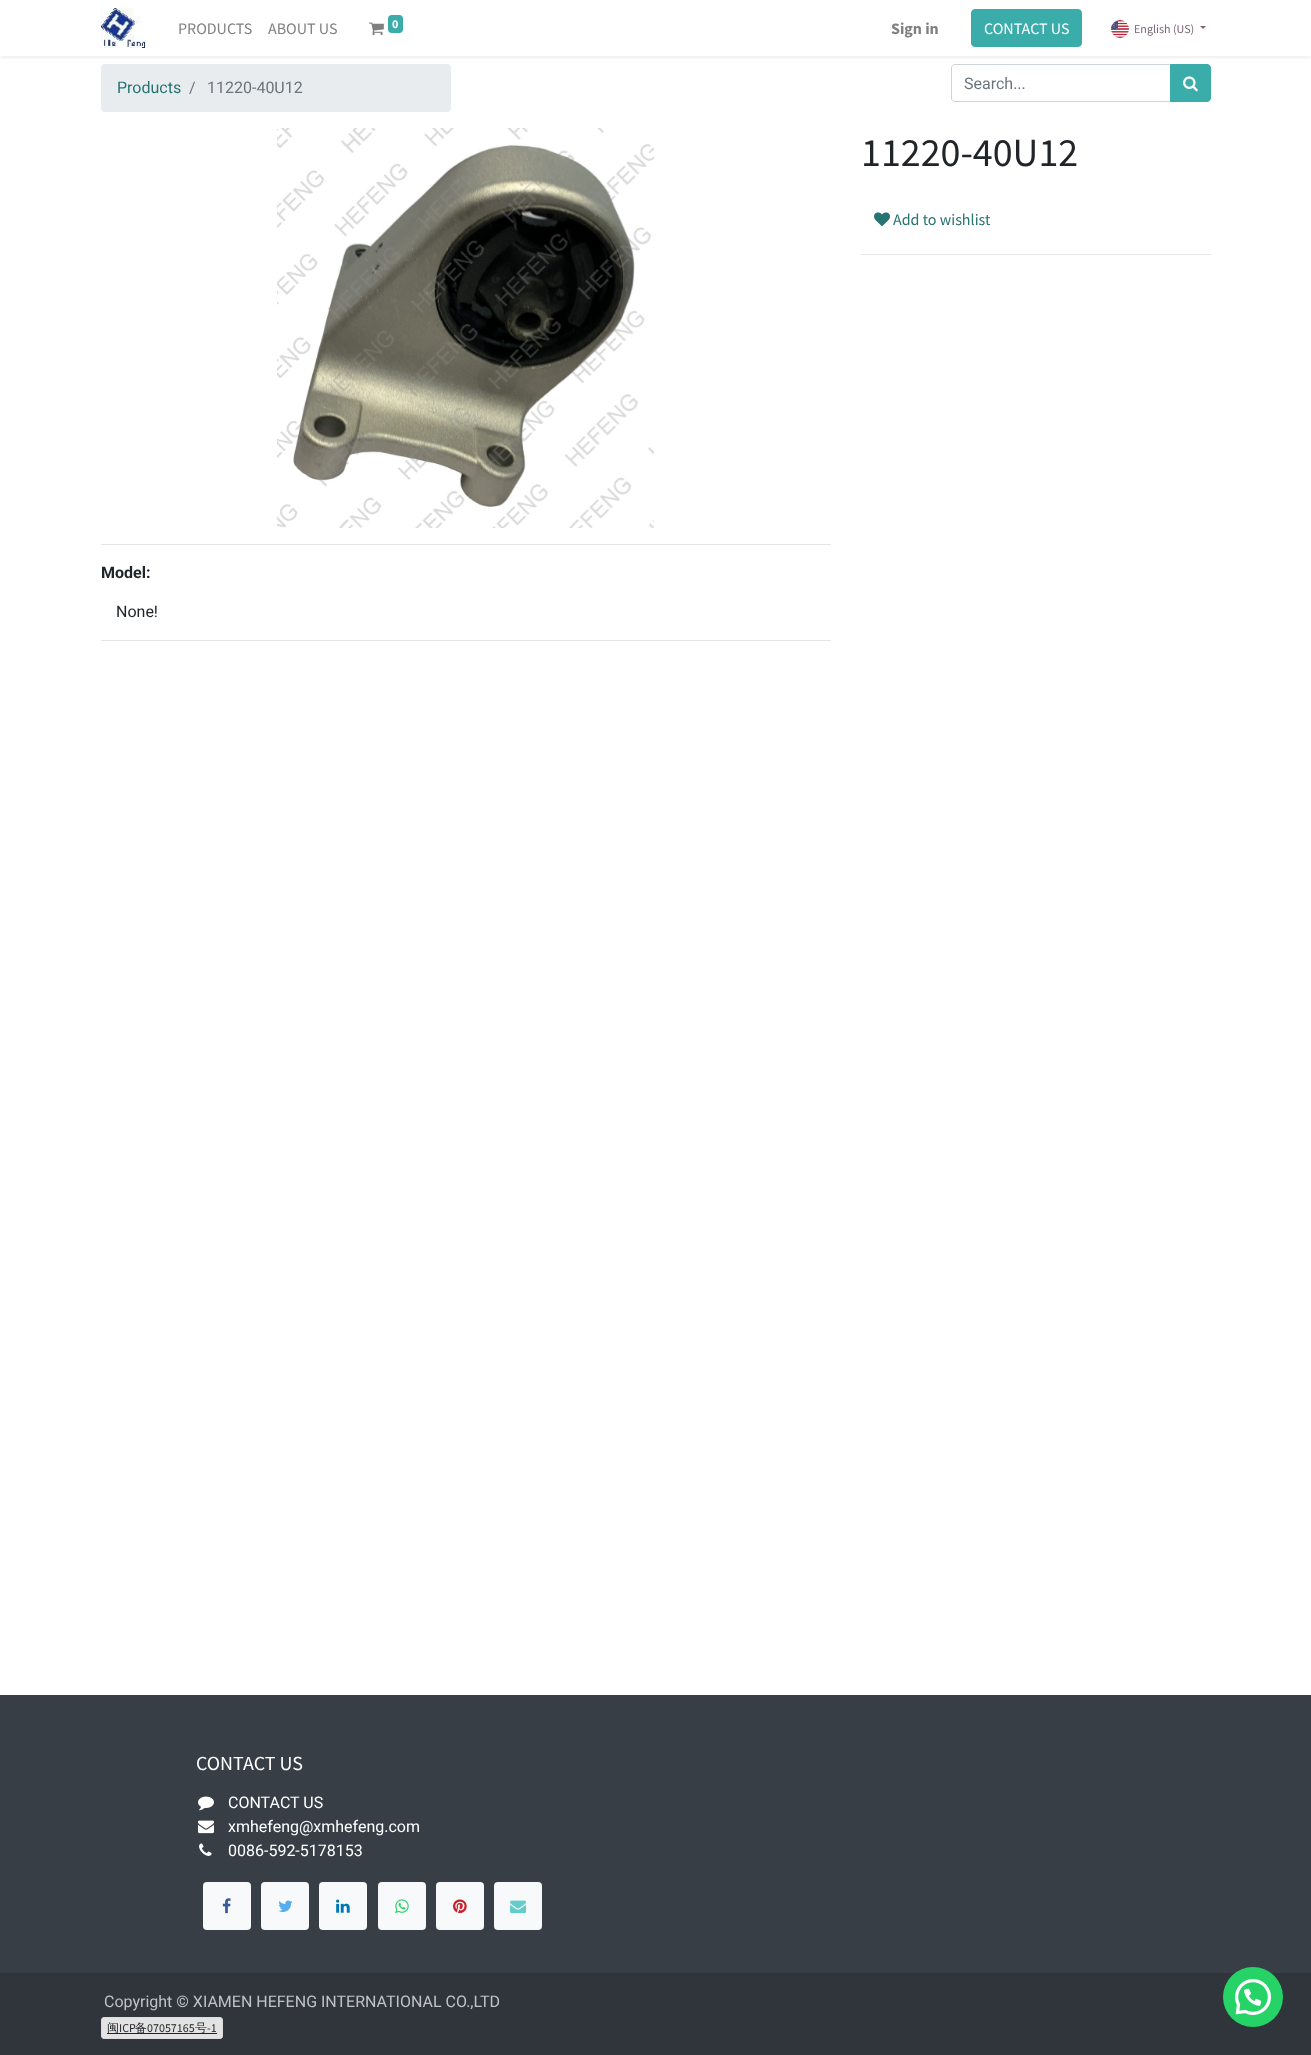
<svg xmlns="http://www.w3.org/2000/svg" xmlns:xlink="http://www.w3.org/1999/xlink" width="1311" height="2055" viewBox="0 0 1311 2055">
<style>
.cls-1{font:16px Source Sans Pro;fill:#808080}
.cls-2{font:bold 12px Source Sans Pro;fill:#ffffff}
.cls-3{font:bold 16px Source Sans Pro;fill:#808080}
.cls-4{font:16px Source Sans Pro;fill:#ffffff}
.cls-5{font:12px Source Sans Pro;fill:#7c6576}
.cls-6{font:16px Roboto;fill:#267372}
.cls-7{font:16px Roboto;fill:#6c757d}
.cls-8{font:40px Source Sans Pro;fill:#212529}
.cls-9{font:16px Source Sans Pro;fill:#267372}
.cls-10{font:bold 16px Roboto;fill:#212529}
.cls-11{font:16px Roboto;fill:#212529}
.cls-12{font:20px Source Sans Pro;fill:#ffffff}
.cls-13{font:16px Roboto;fill:#ffffff}
.cls-14{font:16px Roboto;fill:#c1c2c4}
.cls-15{font:500 12px WenQuanYi Zen Hei;fill:#212529}
.cls-16{font:12px Source Sans Pro;fill:#212529}
</style>
<defs>
<clipPath id="clip1"><rect x="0" y="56" width="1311" height="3"/></clipPath>
</defs>
<rect width="100%" height="100%" fill="#ffffff"/>
<rect fill="#e9ecef" x="101" y="64" width="350" height="48" rx="4"/>
<path fill="none" stroke="#ced4da" d="M955 64.5H1170.5V101.5H955C953 101.5 951.5 100 951.5 98V68C951.5 66 953 64.5 955 64.5Z"/>
<path fill="#3aadaa" stroke="#3aadaa" d="M1170.5 64.5H1207C1209 64.5 1210.5 66 1210.5 68V98C1210.5 100 1209 101.5 1207 101.5H1170.5Z"/>
<g clip-path="url(#clip1)">
<rect fill="#000000" fill-opacity="0.07" filter="blur(2px)" x="0" y="2" width="1311" height="56"/>
</g>
<image xlink:href="image0.png" x="101" y="8" width="45" height="40"/>
<image xlink:href="image1.png" x="369" y="22" width="15" height="14"/>
<rect fill="#3aadaa" x="388" y="15" width="15" height="18" rx="4"/>
<rect fill="#3aadaa" stroke="#3aadaa" x="971.5" y="9.5" width="110" height="37" rx="3.5"/>
<image xlink:href="image2.png" x="1111" y="20" width="18" height="18"/>
<path fill="#7c6576" d="M1200 26H1206L1203 29Z"/>
<image xlink:href="image3.png" x="1183" y="76" width="15" height="16"/>
<image xlink:href="image4.png" x="874" y="212" width="16" height="15"/>
<rect fill="#e6e6e6" x="861" y="254" width="350" height="1"/>
<image xlink:href="image5.png" x="277" y="128" width="377" height="400"/>
<rect fill="#e6e6e6" x="101" y="544" width="730" height="1"/>
<rect fill="#e6e6e6" x="101" y="640" width="730" height="1"/>
<rect fill="#383e45" x="0" y="1695" width="1311" height="278"/>
<image xlink:href="image6.png" x="198" y="1796" width="16" height="15"/>
<image xlink:href="image7.png" x="198" y="1820" width="16" height="14"/>
<image xlink:href="image8.png" x="199" y="1843" width="13" height="13"/>
<rect fill="#f8f9fa" x="203" y="1882" width="48" height="48" rx="4"/>
<image xlink:href="image9.png" x="222" y="1898" width="9" height="16"/>
<rect fill="#f8f9fa" x="261" y="1882" width="48" height="48" rx="4"/>
<image xlink:href="image10.png" x="278" y="1900" width="15" height="12"/>
<rect fill="#f8f9fa" x="319" y="1882" width="48" height="48" rx="4"/>
<image xlink:href="image11.png" x="336" y="1899" width="14" height="14"/>
<rect fill="#f8f9fa" x="378" y="1882" width="48" height="48" rx="4"/>
<image xlink:href="image12.png" x="395" y="1899" width="14" height="15"/>
<rect fill="#f8f9fa" x="436" y="1882" width="48" height="48" rx="4"/>
<image xlink:href="image13.png" x="453" y="1899" width="14" height="15"/>
<rect fill="#f8f9fa" x="494" y="1882" width="48" height="48" rx="4"/>
<image xlink:href="image14.png" x="510" y="1900" width="16" height="14"/>
<rect fill="#30353b" x="0" y="1973" width="1311" height="82"/>
<rect fill="#e3e3e3" stroke="#dddcdc" x="101.5" y="2017.5" width="121" height="21" rx="2.5"/>
<rect fill="#212529" x="107" y="2033" width="110" height="1"/>
<circle fill="#25d366" cx="1253" cy="1997" r="30"/>
<image xlink:href="image15.png" x="1235" y="1979" width="36" height="36"/>
<text class="cls-1" x="178" y="34">PRODUCTS</text>
<text class="cls-1" x="268" y="34">ABOUT US</text>
<text class="cls-2" x="392" y="28">0</text>
<text class="cls-3" x="891" y="34">Sign in</text>
<text class="cls-4" x="984" y="34">CONTACT US</text>
<text class="cls-5" x="1134" y="33">English (US)</text>
<text class="cls-6" x="117" y="93">Products</text>
<text class="cls-7" x="189" y="93">/</text>
<text class="cls-7" x="207" y="93">11220-40U12</text>
<text class="cls-7" x="964" y="89">Search...</text>
<text class="cls-8" x="861" y="166">11220-40U12</text>
<text class="cls-9" x="893" y="225">Add to wishlist</text>
<text class="cls-10" x="101" y="578">Model:</text>
<text class="cls-11" x="116" y="617">None!</text>
<text class="cls-12" x="196" y="1770">CONTACT US</text>
<text class="cls-13"><tspan x="228" y="1808">CONTACT US</tspan><tspan x="228" y="1832">xmhefeng@xmhefeng.com</tspan><tspan x="228" y="1856">0086-592-5178153</tspan></text>
<text class="cls-14" x="104" y="2007">Copyright © XIAMEN HEFENG INTERNATIONAL CO.,LTD</text>
<text class="cls-15" x="107" y="2032">闽</text>
<text class="cls-16" x="119" y="2032">ICP</text>
<text class="cls-15" x="135" y="2032">备</text>
<text class="cls-16" x="147" y="2032">07057165</text>
<text class="cls-15" x="195" y="2032">号</text>
<text class="cls-16" x="207" y="2032">-1</text>
</svg>
